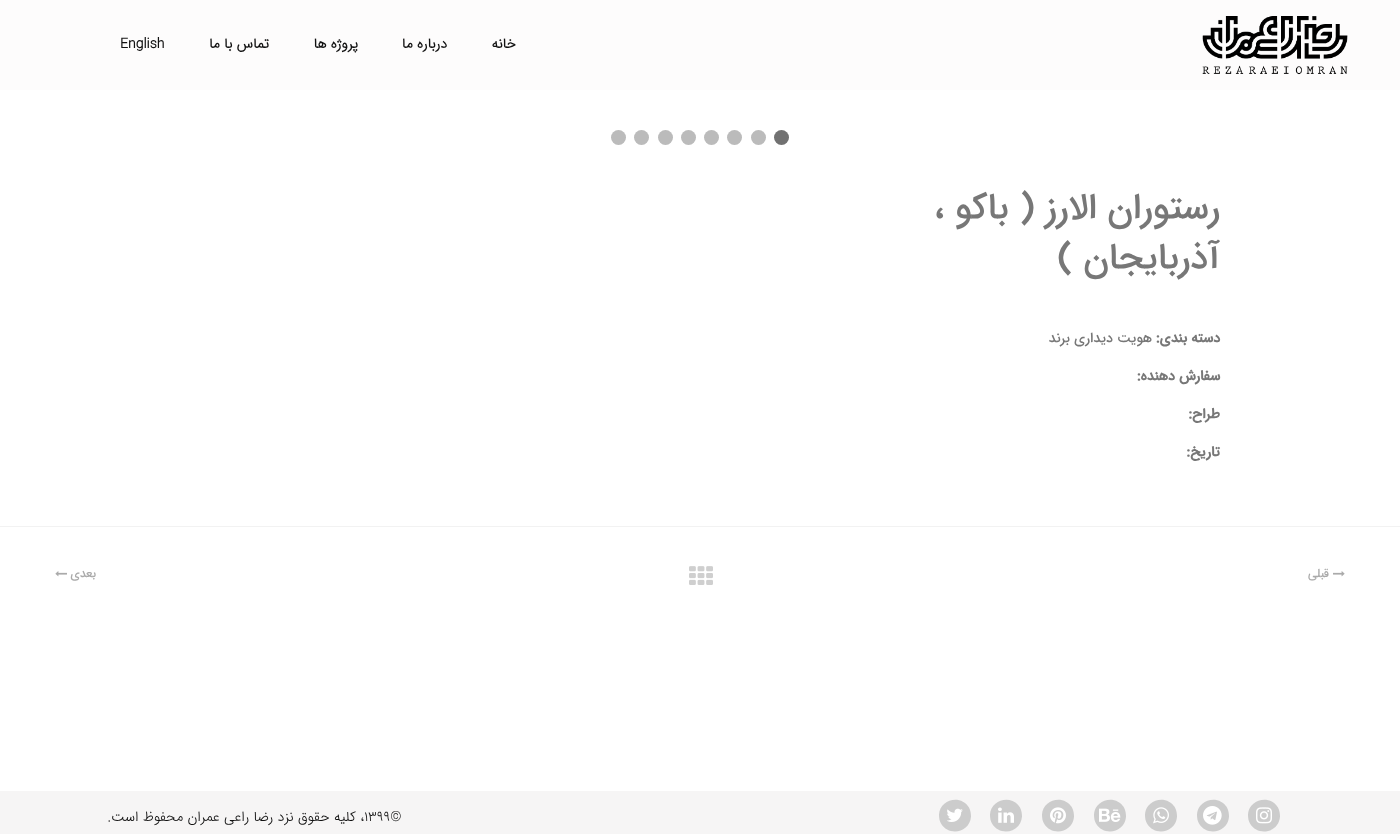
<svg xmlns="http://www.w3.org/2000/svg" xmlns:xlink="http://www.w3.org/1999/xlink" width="1400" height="834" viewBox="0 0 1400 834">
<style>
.cls-1{font:bold 14px 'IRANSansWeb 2';direction:rtl;fill:#111111}
.cls-2{font:bold 14px 'IRANSansWeb 2';fill:#111111}
.cls-3{font:500 36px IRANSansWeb;direction:rtl;fill:#777777}
.cls-4{font:bold 14px IRANSansWeb;direction:rtl;fill:#777777}
.cls-5{font:500 14px IRANSansWeb;direction:rtl;fill:#777777}
.cls-6{font:500 12px IRANSansWeb;direction:rtl;fill:#aaaaaa}
.cls-7{font:300 14px IRANSansWeb;fill:#111111}
.cls-8{font:300 14px IRANSansWeb;direction:rtl;fill:#111111}
</style>
<rect width="100%" height="100%" fill="#ffffff"/>
<rect fill="#fdfcfc" x="0" y="0" width="1400" height="90"/>
<image xlink:href="image0.png" x="1202" y="16" width="146" height="59"/>
<circle fill="#717171" cx="781.5" cy="137.5" r="7.5"/>
<circle fill="#bbbbbb" cx="758.5" cy="137.5" r="7.5"/>
<circle fill="#bbbbbb" cx="734.5" cy="137.5" r="7.5"/>
<circle fill="#bbbbbb" cx="711.5" cy="137.5" r="7.5"/>
<circle fill="#bbbbbb" cx="688.5" cy="137.5" r="7.5"/>
<circle fill="#bbbbbb" cx="665.5" cy="137.5" r="7.5"/>
<circle fill="#bbbbbb" cx="641.5" cy="137.5" r="7.5"/>
<circle fill="#bbbbbb" cx="618.5" cy="137.5" r="7.5"/>
<rect fill="#f2f2f2" x="0" y="526" width="1400" height="1"/>
<image xlink:href="image1.png" x="1333" y="571" width="12" height="6"/>
<image xlink:href="image2.png" x="689" y="566" width="24" height="19"/>
<image xlink:href="image3.png" x="55" y="571" width="12" height="6"/>
<rect fill="#f6f5f5" x="0" y="791" width="1400" height="43"/>
<path fill="#cccccc" d="M1278 807.5C1279.5 810.5 1280 813.5 1280 816.5C1279 832.5 1258 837 1250 823.5C1248.5 821 1248 818 1248 814.5C1249 799 1270 794 1278 807.5Z"/>
<image xlink:href="image4.png" x="1256" y="807" width="16" height="17"/>
<path fill="#cccccc" d="M1227 807.5C1228.5 810.5 1229 813.5 1229 816.5C1228 832.5 1207 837 1199 823.5C1197.5 821 1197 818 1197 814.5C1198 799 1219 794 1227 807.5Z"/>
<image xlink:href="image5.png" x="1203" y="806" width="19" height="19"/>
<path fill="#cccccc" d="M1175 807.5C1176.5 810.5 1177 813.5 1177 816.5C1176 832.5 1155 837 1147 823.5C1145.5 821 1145 818 1145 814.5C1146 799 1167 794 1175 807.5Z"/>
<image xlink:href="image6.png" x="1153" y="807" width="16" height="17"/>
<path fill="#cccccc" d="M1124 807.5C1125.5 810.5 1126 813.5 1126 816.5C1125 832.5 1104 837 1096 823.5C1094.5 821 1094 818 1094 814.5C1095 799 1116 794 1124 807.5Z"/>
<image xlink:href="image7.png" x="1099" y="808" width="22" height="14"/>
<path fill="#cccccc" d="M1072 807.5C1073.5 810.5 1074 813.5 1074 816.5C1073 832.5 1052 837 1044 823.5C1042.5 821 1042 818 1042 814.5C1043 799 1064 794 1072 807.5Z"/>
<image xlink:href="image8.png" x="1050" y="807" width="16" height="17"/>
<path fill="#cccccc" d="M1020 807.5C1021.5 810.5 1022 813.5 1022 816.5C1021 832.5 1000 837 992 823.5C990.5 821 990 818 990 814.5C991 799 1012 794 1020 807.5Z"/>
<image xlink:href="image9.png" x="998" y="807" width="16" height="16"/>
<path fill="#cccccc" d="M969 807.5C970.5 810.5 971 813.5 971 816.5C970 832.5 949 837 941 823.5C939.5 821 939 818 939 814.5C940 799 961 794 969 807.5Z"/>
<image xlink:href="image10.png" x="947" y="808" width="16" height="14"/>
<text class="cls-1" x="516" y="48">خانه</text>
<text class="cls-1" x="447" y="48">درباره ما</text>
<text class="cls-1" x="358" y="48">پروژه ها</text>
<text class="cls-1" x="269" y="48">تماس با ما</text>
<text class="cls-2" x="120" y="48">English</text>
<text class="cls-3"><tspan x="1220" y="218">رستوران الارز ( باکو ،</tspan><tspan x="1220" y="268">آذربایجان )</tspan></text>
<text class="cls-4" x="1220" y="342">دسته بندی:</text>
<text class="cls-5" x="1152" y="342">هویت دیداری برند</text>
<text class="cls-4" x="1220" y="380">سفارش دهنده:</text>
<text class="cls-4" x="1220" y="418">طراح:</text>
<text class="cls-4" x="1220" y="456">تاریخ:</text>
<text class="cls-6" x="1329" y="577">قبلی</text>
<text class="cls-6" x="96" y="577">بعدی</text>
<text class="cls-7" x="364" y="821">۱۳۹۹©</text>
<text class="cls-8" x="364" y="821">، کلیه حقوق نزد رضا راعی عمران محفوظ است.</text>
</svg>
